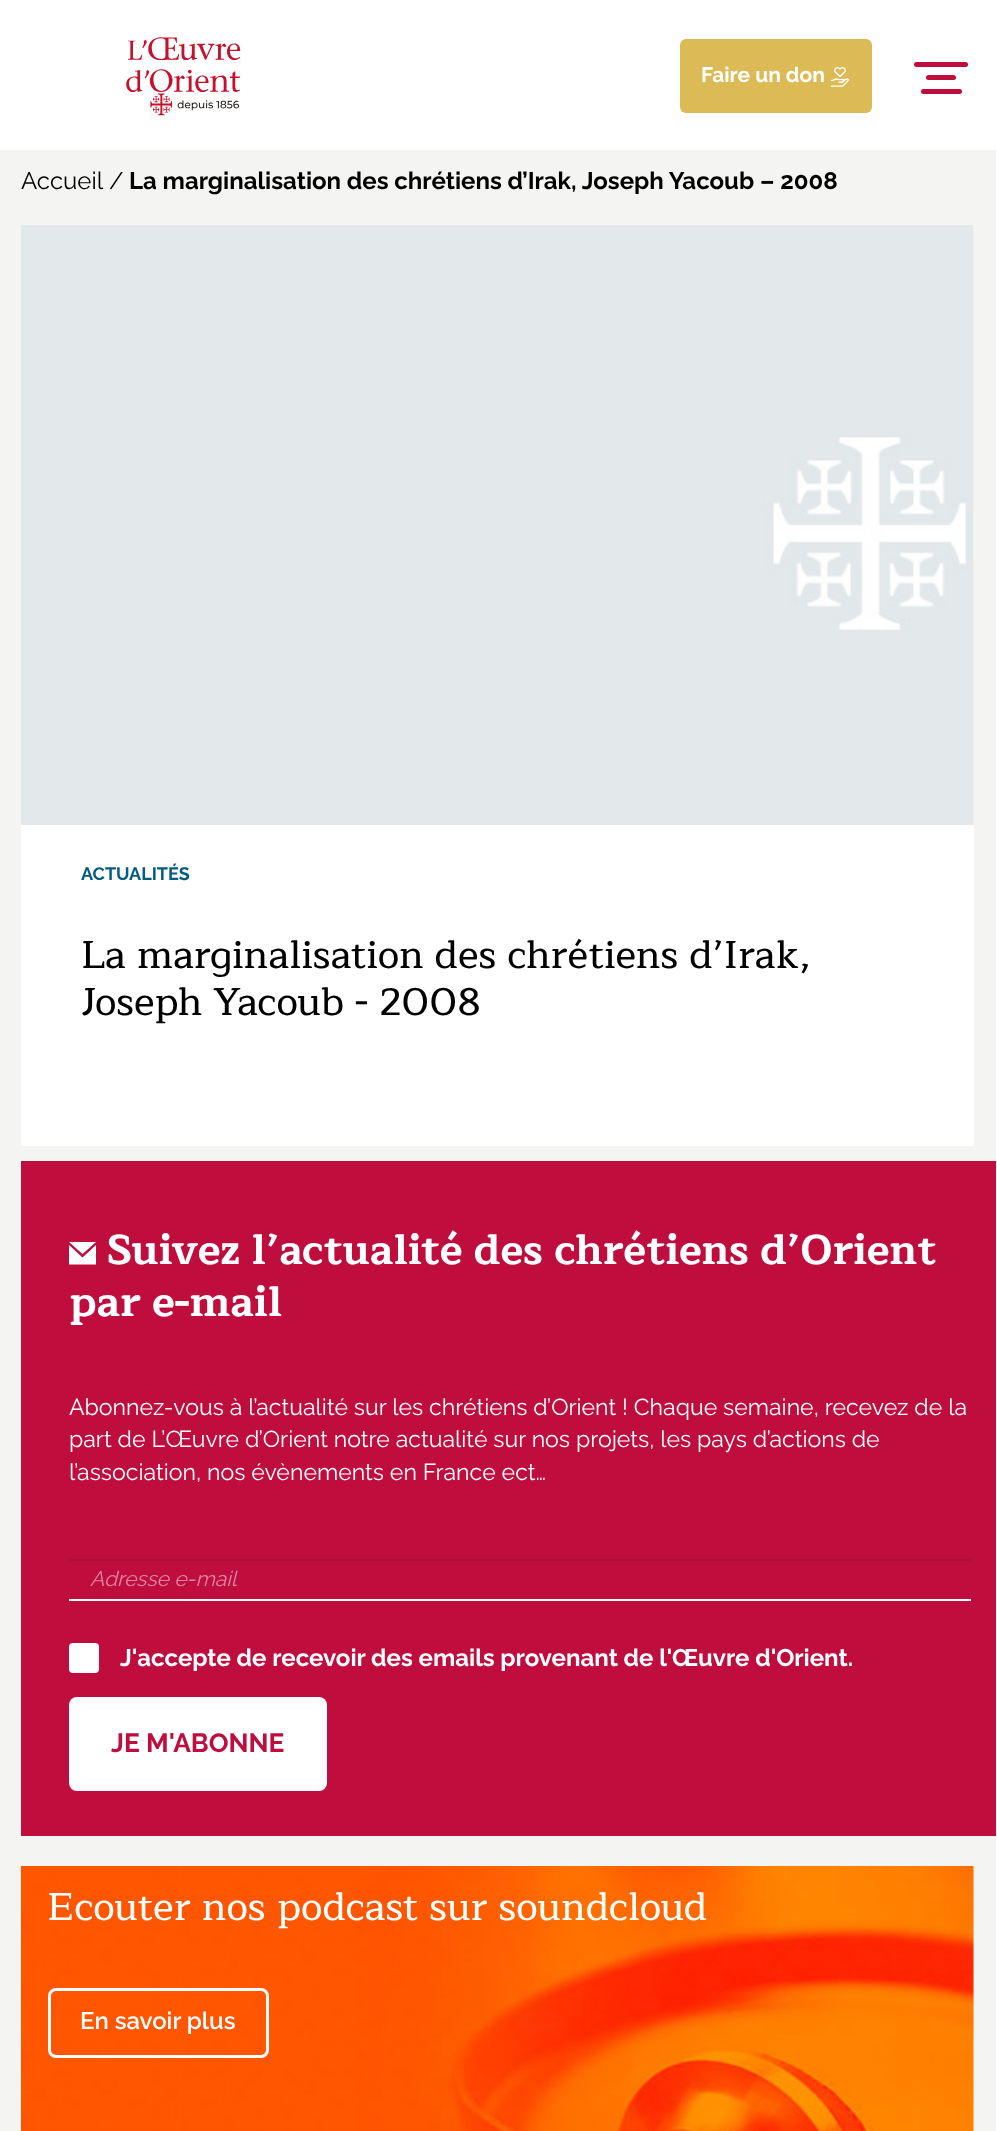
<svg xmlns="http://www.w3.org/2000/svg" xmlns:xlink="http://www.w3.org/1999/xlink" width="997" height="2131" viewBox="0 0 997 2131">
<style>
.cls-1{font:bold 21px Raleway;fill:#ffffff}
.cls-2{font:24px Raleway;fill:#000000}
.cls-3{font:bold 24px Raleway;fill:#000000}
.cls-4{font:bold 18px Raleway;fill:#035b80}
.cls-5{font:500 39px Maitree;fill:#000000}
.cls-6{font:bold 42px Maitree;fill:#ffffff}
.cls-7{font:23.1px Raleway;fill:#ffffff}
.cls-8{font:italic 21px Raleway;fill:#df869f}
.cls-9{font:bold 24px Raleway;fill:#ffffff}
.cls-10{font:bold 26.25px Raleway;fill:#bf0d3e}
.cls-11{font:500 39px Maitree;fill:#ffffff}
.cls-12{font:600 24px Raleway;fill:#ffffff}
</style>
<rect width="100%" height="100%" fill="#ffffff"/>
<image xlink:href="image0.png" x="126" y="37" width="115" height="79"/>
<rect fill="#dcbb56" x="680" y="39" width="192" height="74" rx="6"/>
<image xlink:href="image1.png" x="830" y="67" width="20" height="20"/>
<rect fill="#bf0d3e" x="914" y="62" width="54" height="5" rx="2.5"/>
<rect fill="#bf0d3e" x="926" y="75" width="30" height="5" rx="2.5"/>
<rect fill="#bf0d3e" x="921" y="89" width="41" height="5" rx="2.5"/>
<rect fill="#f4f4f2" x="0" y="150" width="996" height="1981"/>
<image xlink:href="image2.png" x="21" y="225" width="953" height="600"/>
<rect fill="#ffffff" x="21" y="825" width="953" height="321"/>
<rect fill="#bf0d3e" x="21" y="1161" width="975" height="675"/>
<path fill="#ffffff" d="M82.5 1254L69 1242H96ZM82.5 1257.5L69 1245V1264.5H96V1245Z"/>
<rect fill="#b10c39" x="69" y="1559" width="902" height="2"/>
<rect fill="#ffffff" x="69" y="1599" width="902" height="2"/>
<rect fill="#ffffff" stroke="#ffffff" stroke-width="3" x="70.5" y="1644.5" width="27" height="27" rx="2.5"/>
<rect fill="#ffffff" x="69" y="1697" width="258" height="94" rx="8"/>
<image xlink:href="image3.png" x="21" y="1866" width="953" height="265"/>
<rect fill="none" stroke="#ffffff" stroke-width="3" x="49.5" y="1989.5" width="218" height="67" rx="6.5"/>
<text class="cls-1" x="701" y="82">Faire un don</text>
<text class="cls-2" x="21" y="189">Accueil</text>
<text class="cls-2" x="109" y="189">/</text>
<text class="cls-3" x="129" y="189">La marginalisation des chrétiens d’Irak, Joseph Yacoub – 2008</text>
<text class="cls-4" x="81" y="880">ACTUALITÉS</text>
<text class="cls-5"><tspan x="81" y="968">La marginalisation des chrétiens d’Irak,</tspan><tspan x="81" y="1015">Joseph Yacoub - 2008</tspan></text>
<text class="cls-6" x="107" y="1264">Suivez l’actualité des chrétiens d’Orient</text>
<text class="cls-6" x="69" y="1316">par e-mail</text>
<text class="cls-7"><tspan x="69" y="1415">Abonnez-vous à l’actualité sur les chrétiens d’Orient ! Chaque semaine, recevez de la</tspan><tspan x="69" y="1447">part de L’Œuvre d’Orient notre actualité sur nos projets, les pays d’actions de</tspan><tspan x="69" y="1480">l’association, nos évènements en France ect…</tspan></text>
<text class="cls-8" x="90" y="1586">Adresse e-mail</text>
<text class="cls-9" x="120" y="1666">J'accepte de recevoir des emails provenant de l'Œuvre d'Orient.</text>
<text class="cls-10" x="111" y="1752">JE M'ABONNE</text>
<text class="cls-11" x="47" y="1920">Ecouter nos podcast sur soundcloud</text>
<text class="cls-12" x="80" y="2029">En savoir plus</text>
</svg>
